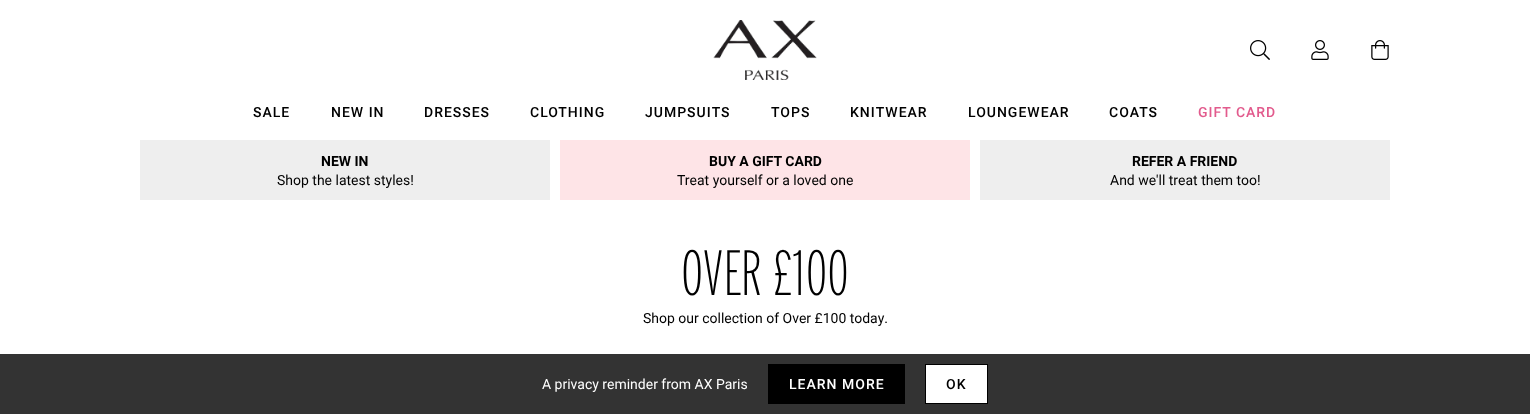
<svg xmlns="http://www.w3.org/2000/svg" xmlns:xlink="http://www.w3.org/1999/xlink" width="1530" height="414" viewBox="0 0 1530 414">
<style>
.cls-1{font:500 14px Roboto;letter-spacing:1px;fill:#000000}
.cls-2{font:500 14px Roboto;letter-spacing:1px;fill:#e25b8d}
.cls-3{font:bold 14px Roboto;fill:#000000}
.cls-4{font:14px Roboto;fill:#000000}
.cls-5{font:200 64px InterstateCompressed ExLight;fill:#000000}
.cls-6{font:14px Roboto;fill:#ffffff}
.cls-7{font:500 14px Roboto;letter-spacing:1px;fill:#ffffff}
</style>
<rect width="100%" height="100%" fill="#ffffff"/>
<image xlink:href="image0.png" x="713" y="20" width="104" height="60"/>
<image xlink:href="image1.png" x="1250" y="40" width="20" height="20"/>
<image xlink:href="image2.png" x="1311" y="40" width="18" height="20"/>
<image xlink:href="image3.png" x="1371" y="40" width="18" height="20"/>
<rect fill="#eeeeee" x="140" y="140" width="410" height="60"/>
<rect fill="#fee4e7" x="560" y="140" width="410" height="60"/>
<rect fill="#eeeeee" x="980" y="140" width="410" height="60"/>
<rect fill="#333333" x="0" y="354" width="1530" height="60"/>
<rect fill="#000000" x="768" y="364" width="137" height="40"/>
<rect fill="#ffffff" stroke="#000000" x="925.5" y="364.5" width="62" height="39"/>
<text class="cls-1" x="253" y="117">SALE</text>
<text class="cls-1" x="331" y="117">NEW IN</text>
<text class="cls-1" x="424" y="117">DRESSES</text>
<text class="cls-1" x="530" y="117">CLOTHING</text>
<text class="cls-1" x="645" y="117">JUMPSUITS</text>
<text class="cls-1" x="771" y="117">TOPS</text>
<text class="cls-1" x="850" y="117">KNITWEAR</text>
<text class="cls-1" x="968" y="117">LOUNGEWEAR</text>
<text class="cls-1" x="1109" y="117">COATS</text>
<text class="cls-2" x="1198" y="117">GIFT CARD</text>
<text class="cls-3" x="321" y="166">NEW IN</text>
<text class="cls-4" x="277" y="185">Shop the latest styles!</text>
<text class="cls-3" x="709" y="166">BUY A GIFT CARD</text>
<text class="cls-4" x="677" y="185">Treat yourself or a loved one</text>
<text class="cls-3" x="1132" y="166">REFER A FRIEND</text>
<text class="cls-4" x="1110" y="185">And we'll treat them too!</text>
<text class="cls-5" x="681" y="295">OVER £100</text>
<text class="cls-4" x="643" y="323">Shop our collection of Over £100 today.</text>
<text class="cls-6" x="542" y="389">A privacy reminder from AX Paris</text>
<text class="cls-7" x="789" y="389">LEARN MORE</text>
<text class="cls-1" x="946" y="389">OK</text>
</svg>
